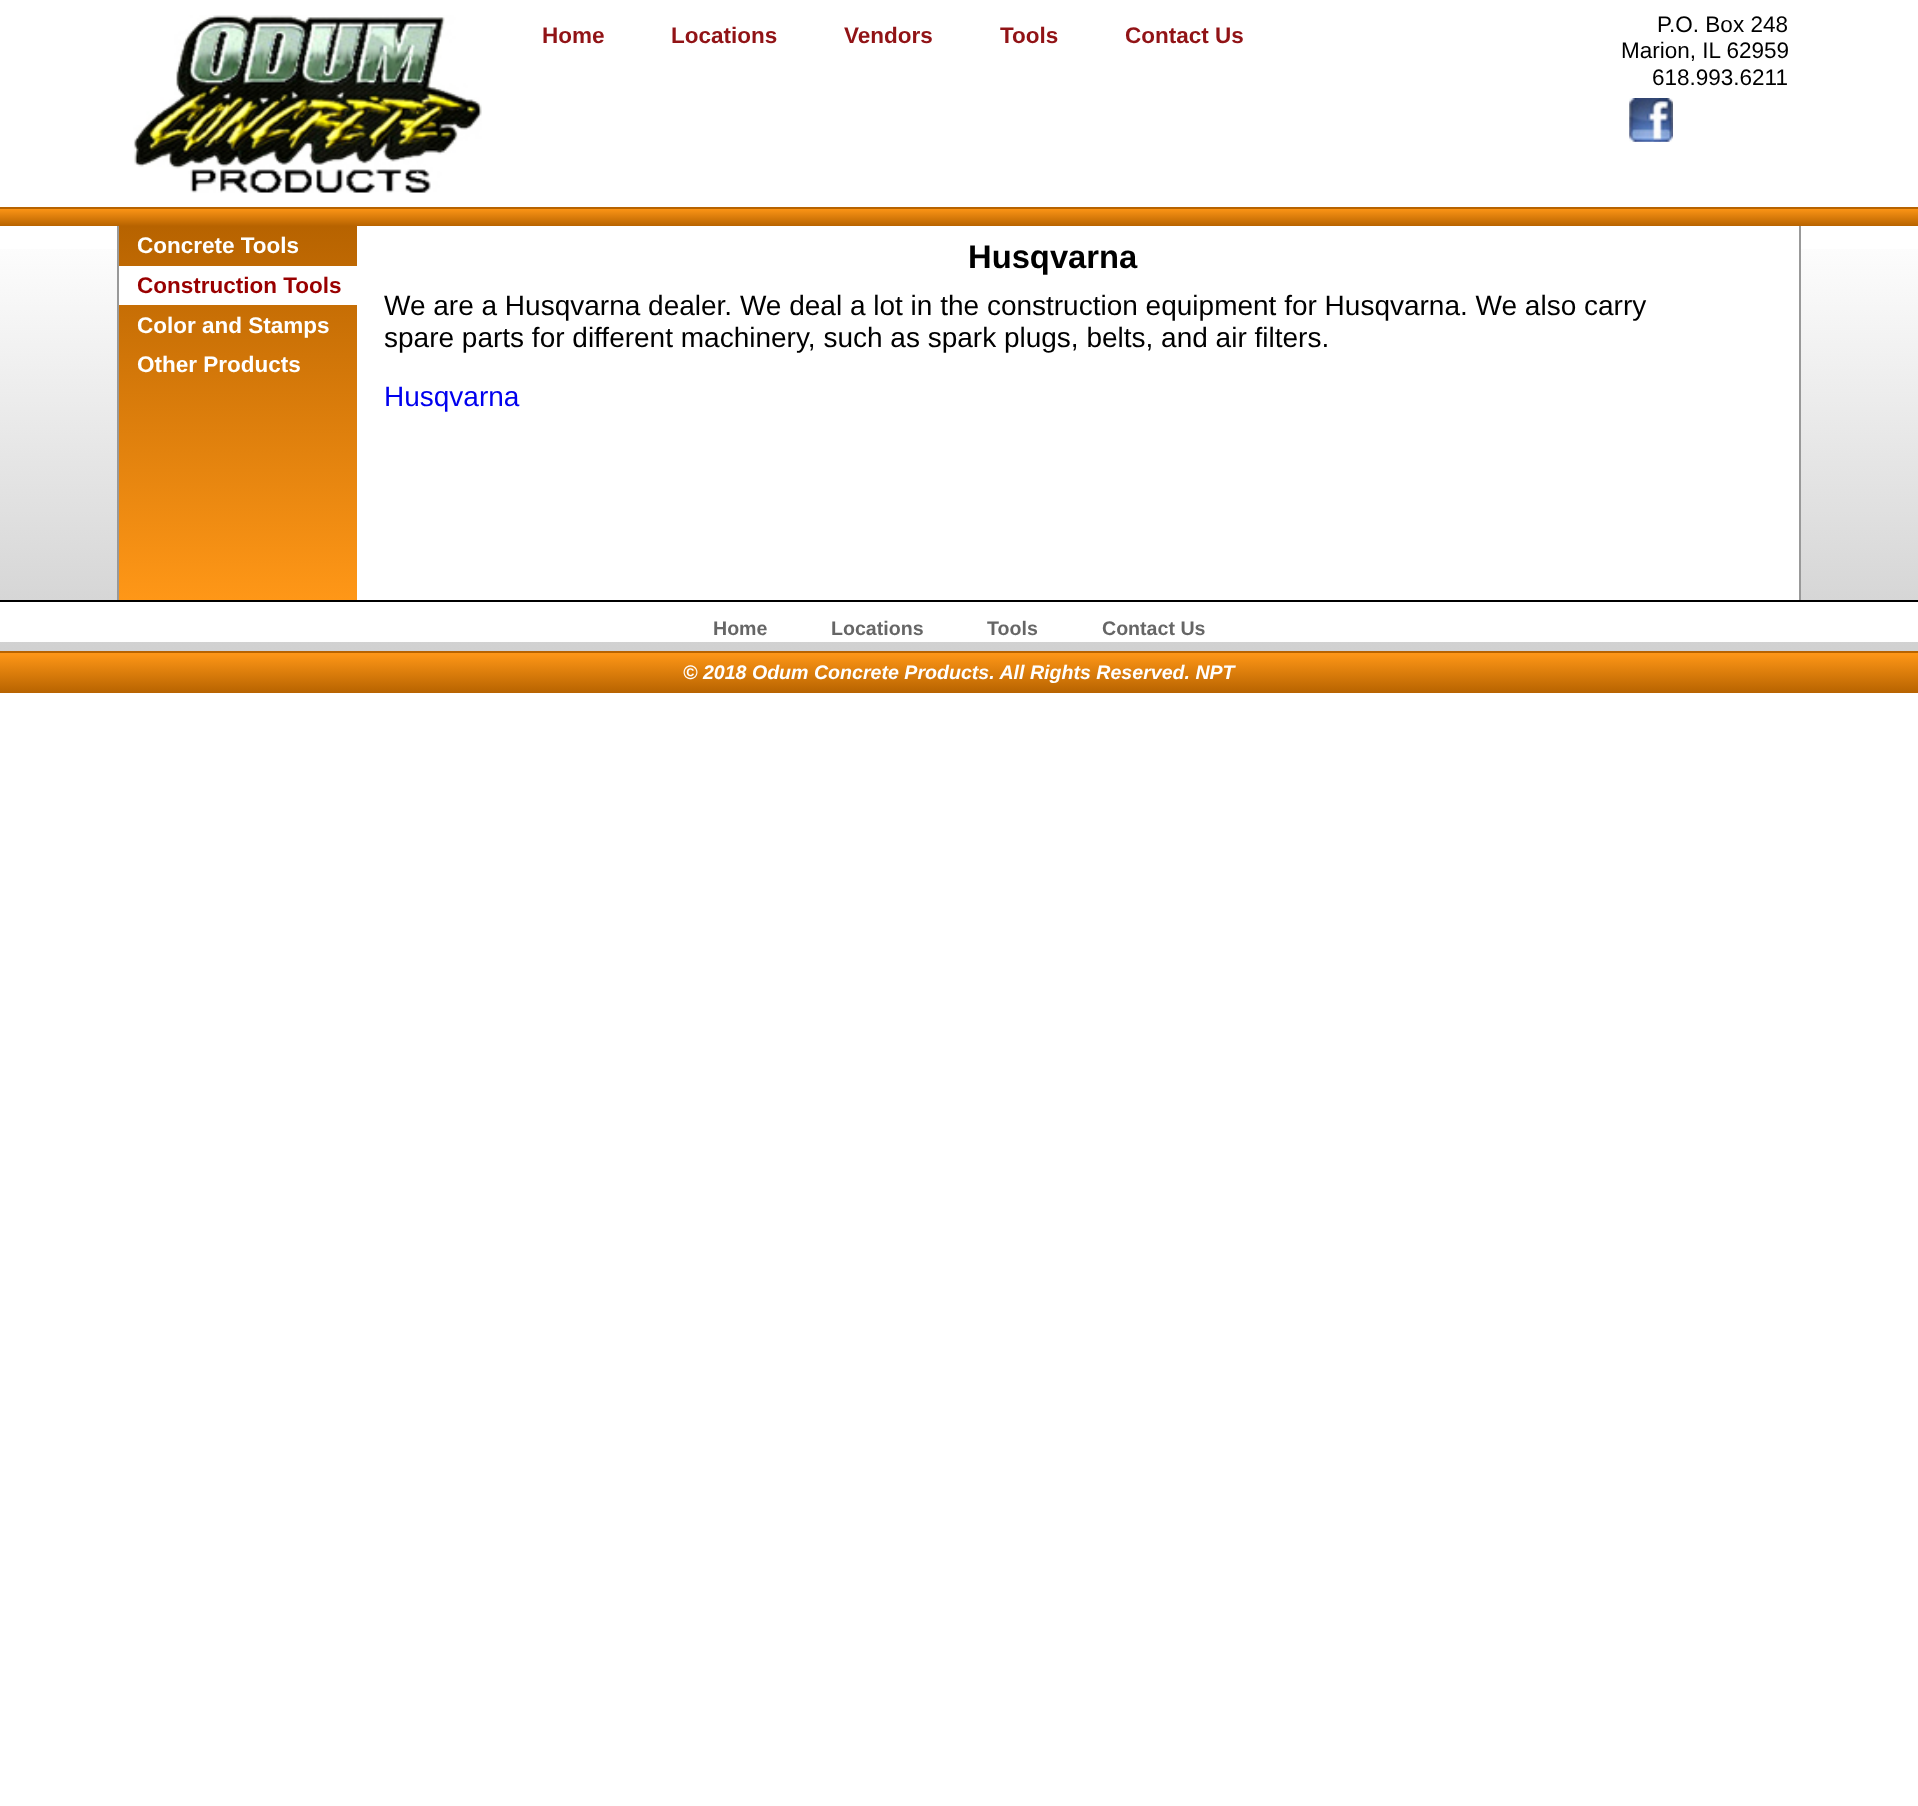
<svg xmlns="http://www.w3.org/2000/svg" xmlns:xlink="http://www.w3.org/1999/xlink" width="1918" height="1806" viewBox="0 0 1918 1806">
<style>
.cls-1{font:bold 22.5px Liberation Sans;fill:#911316}
.cls-2{font:22.5px Liberation Sans;fill:#000000}
.cls-3{font:bold 22.5px Liberation Sans;fill:#ffffff}
.cls-4{font:bold 22.5px Liberation Sans;fill:#990000}
.cls-5{font:bold 32.75px Liberation Sans;fill:#000000}
.cls-6{font:28px Liberation Sans;fill:#000000}
.cls-7{font:28px Liberation Sans;fill:#0000ee}
.cls-8{font:bold 19.6px Liberation Sans;fill:#666666}
.cls-9{font:italic bold 19.6px Liberation Sans;fill:#ffffff}
</style>
<defs>
<linearGradient id="g1" gradientUnits="userSpaceOnUse" x1="959" y1="208" x2="959" y2="226"><stop offset="0" stop-color="#ff9717"/><stop offset="1" stop-color="#b76300"/></linearGradient>
<linearGradient id="g2" gradientUnits="userSpaceOnUse" x1="959" y1="226" x2="959" y2="693"><stop offset="0" stop-color="#ffffff"/><stop offset="1" stop-color="#cccccc"/></linearGradient>
<linearGradient id="g3" gradientUnits="userSpaceOnUse" x1="933" y1="226" x2="933" y2="600"><stop offset="0" stop-color="#b76300"/><stop offset="1" stop-color="#ff9717"/></linearGradient>
<linearGradient id="g4" gradientUnits="userSpaceOnUse" x1="959" y1="653" x2="959" y2="693"><stop offset="0" stop-color="#ff9717"/><stop offset="1" stop-color="#b76300"/></linearGradient>
</defs>
<rect width="100%" height="100%" fill="#ffffff"/>
<image xlink:href="image0.png" x="133" y="15" width="349" height="178"/>
<image xlink:href="image1.png" x="1629" y="98" width="44" height="44"/>
<rect fill="url(#g1)" x="0" y="209" width="1918" height="17"/>
<rect fill="#b76300" x="0" y="207" width="1918" height="2"/>
<rect fill="url(#g2)" x="0" y="249" width="1918" height="402"/>
<rect fill="#ffffff" x="357" y="249" width="1442" height="351"/>
<rect fill="#999999" x="1799" y="226" width="2" height="374"/>
<rect fill="#999999" x="117" y="226" width="2" height="374"/>
<rect fill="url(#g3)" x="119" y="226" width="238" height="374"/>
<rect fill="#ffffff" x="119" y="266" width="238" height="39"/>
<rect fill="#ffffff" x="0" y="602" width="1918" height="40"/>
<rect fill="#000000" x="0" y="600" width="1918" height="2"/>
<rect fill="url(#g4)" x="0" y="653" width="1918" height="40"/>
<rect fill="#b76300" x="0" y="651" width="1918" height="2"/>
<text class="cls-1" x="542" y="43">Home</text>
<text class="cls-1" x="671" y="43">Locations</text>
<text class="cls-1" x="844" y="43">Vendors</text>
<text class="cls-1" x="1000" y="43">Tools</text>
<text class="cls-1" x="1125" y="43">Contact Us</text>
<text class="cls-2" x="1657" y="32">P.O. Box 248</text>
<text class="cls-2" x="1621" y="58">Marion, IL 62959</text>
<text class="cls-2" x="1652" y="85">618.993.6211</text>
<text class="cls-3" x="137" y="253">Concrete Tools</text>
<text class="cls-4" x="137" y="293">Construction Tools</text>
<text class="cls-3"><tspan x="137" y="333">Color and Stamps</tspan><tspan x="137" y="372">Other Products</tspan></text>
<text class="cls-5" x="968" y="268">Husqvarna</text>
<text class="cls-6"><tspan x="384" y="315">We are a Husqvarna dealer. We deal a lot in the construction equipment for Husqvarna. We also carry</tspan><tspan x="384" y="347">spare parts for different machinery, such as spark plugs, belts, and air filters.</tspan></text>
<text class="cls-7" x="384" y="406">Husqvarna</text>
<text class="cls-8" x="713" y="635">Home</text>
<text class="cls-8" x="831" y="635">Locations</text>
<text class="cls-8" x="987" y="635">Tools</text>
<text class="cls-8" x="1102" y="635">Contact Us</text>
<text class="cls-9" x="683" y="679">© 2018 Odum Concrete Products. All Rights Reserved. NPT</text>
</svg>
